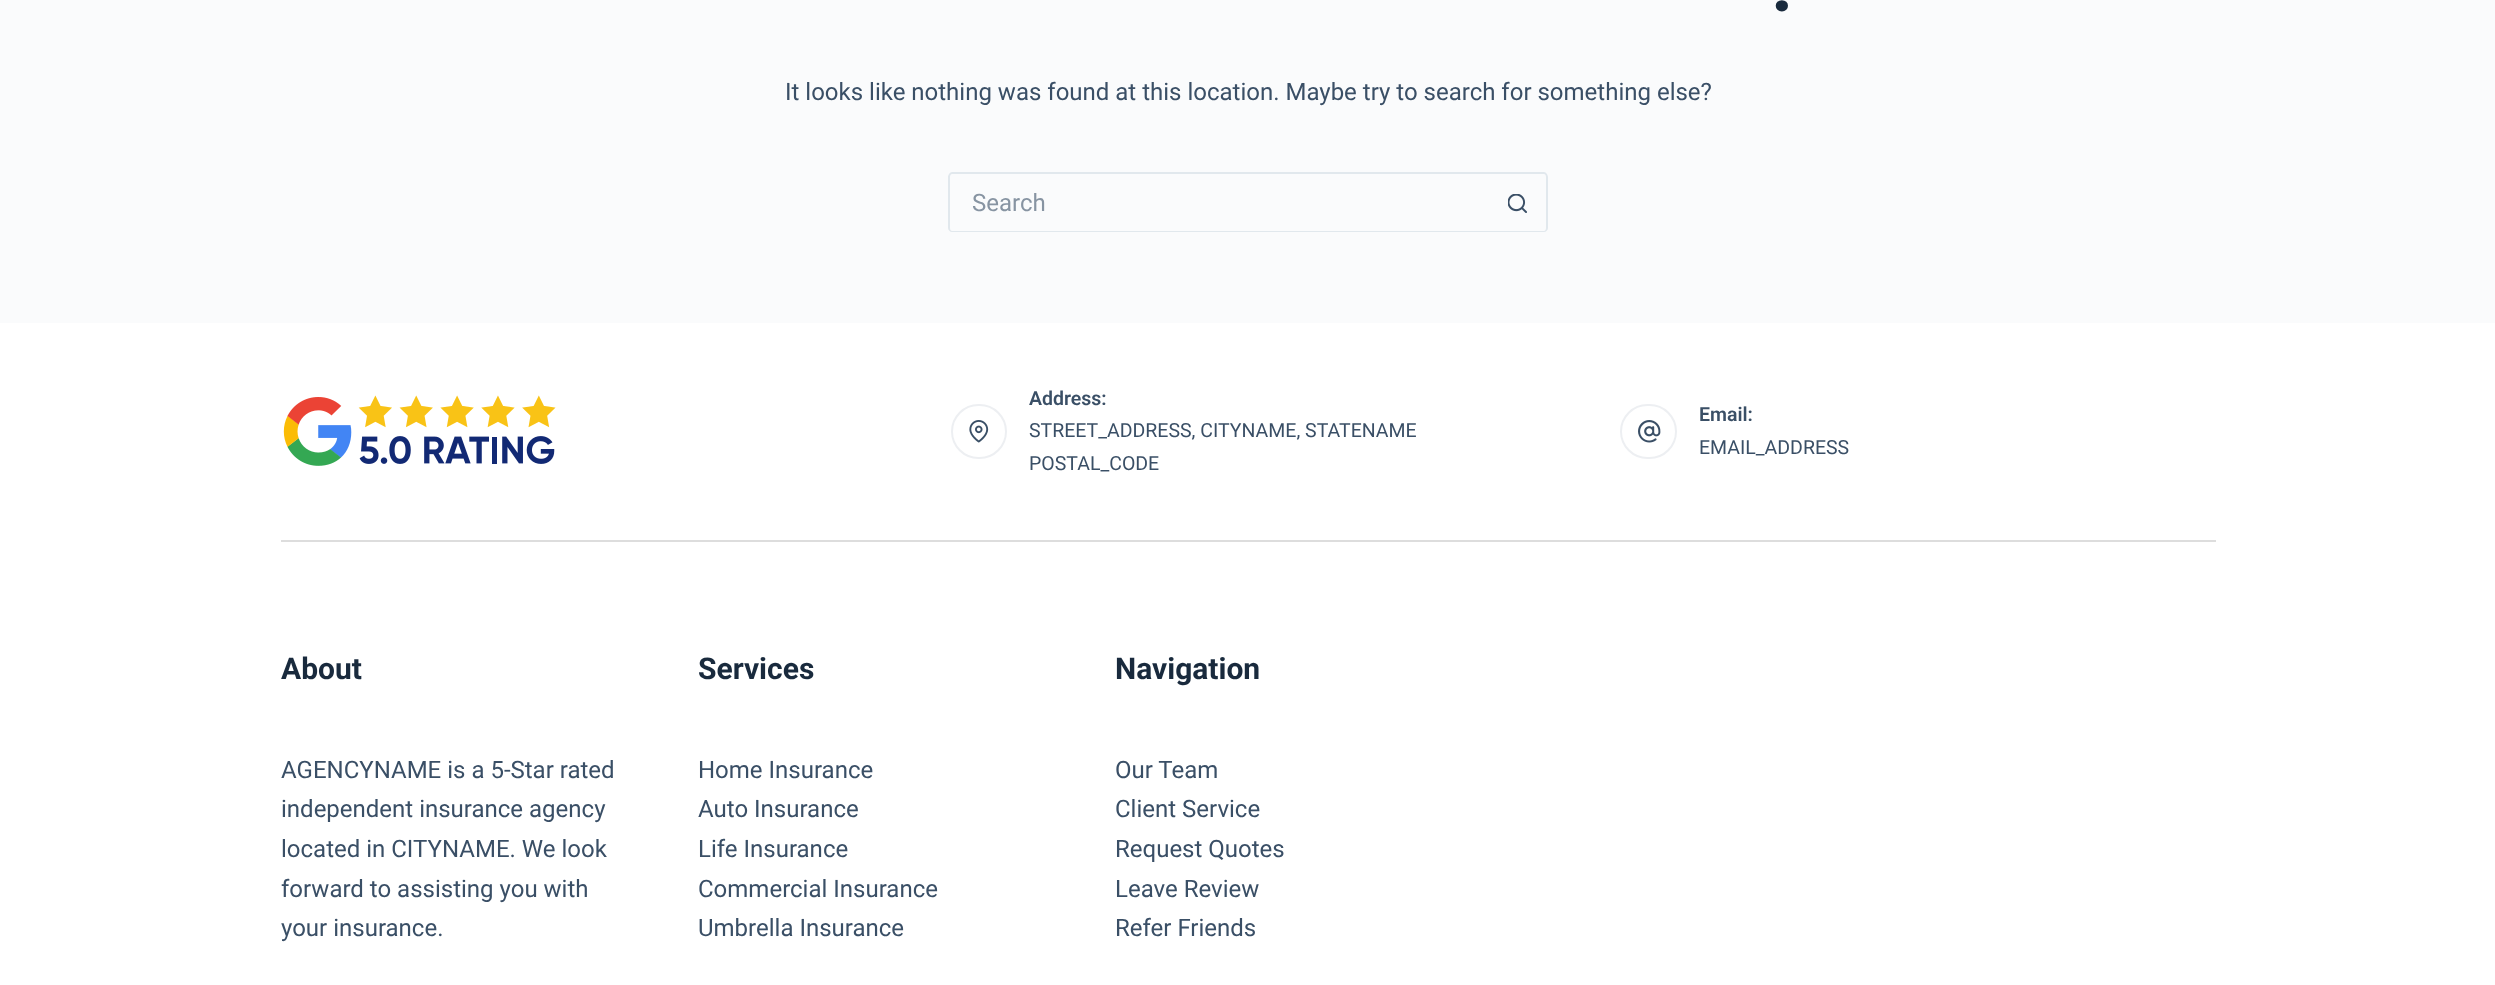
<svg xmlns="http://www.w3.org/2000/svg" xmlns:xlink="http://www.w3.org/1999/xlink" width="2495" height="985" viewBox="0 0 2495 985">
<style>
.cls-1{font:bold 77px Roboto;fill:#192a3d}
.cls-2{font:24px Roboto;fill:#3a4f66}
.cls-3{font:24px Roboto;fill:#8794a2}
.cls-4{font:600 19.5px Roboto;fill:#3a4f66}
.cls-5{font:19.5px Roboto;fill:#3a4f66}
.cls-6{font:bold 30px Roboto;fill:#192a3d}
</style>
<rect width="100%" height="100%" fill="#fafbfc"/>
<path fill="#e1e8ed" fill-rule="evenodd" d="M952 172H1488V232H952C950 232 948 230 948 228V177C948 175 950 172 952 172ZM952 174H1488V231H952C951 231 950 230 950 228V177C950 175 951 174 952 174Z"/>
<path fill="#e1e8ed" fill-rule="evenodd" d="M1488 172H1544C1546 172 1548 175 1548 177V228C1548 230 1546 232 1544 232H1488ZM1488 174H1544C1545 174 1546 175 1546 177V228C1546 230 1545 231 1544 231H1488Z"/>
<image xlink:href="image0.png" x="1508" y="194" width="19" height="19"/>
<rect fill="#ffffff" x="0" y="323" width="2495" height="662"/>
<image xlink:href="image1.png" x="283" y="395" width="273" height="71"/>
<rect fill="none" stroke="#edeff2" stroke-width="2" x="952" y="405" width="54" height="53" rx="26.5"/>
<image xlink:href="image2.png" x="969" y="420" width="20" height="23"/>
<rect fill="none" stroke="#edeff2" stroke-width="2" x="1621" y="405" width="55" height="53" rx="26.5"/>
<image xlink:href="image3.png" x="1638" y="420" width="23" height="23"/>
<rect fill="#dddddd" x="281" y="540" width="1935" height="2"/>
<text class="cls-1" x="1771" y="11">.</text>
<text class="cls-2" x="785" y="100">It looks like nothing was found at this location. Maybe try to search for something else?</text>
<text class="cls-3" x="972" y="211">Search</text>
<text class="cls-4" x="1029" y="405">Address:</text>
<text class="cls-5"><tspan x="1029" y="437">STREET_ADDRESS, CITYNAME, STATENAME</tspan><tspan x="1029" y="470">POSTAL_CODE</tspan></text>
<text class="cls-4" x="1699" y="421">Email:</text>
<text class="cls-5" x="1699" y="454">EMAIL_ADDRESS</text>
<text class="cls-6" x="281" y="679">About</text>
<text class="cls-2"><tspan x="281" y="778">AGENCYNAME is a 5-Star rated</tspan><tspan x="281" y="817">independent insurance agency</tspan><tspan x="281" y="857">located in CITYNAME. We look</tspan><tspan x="281" y="897">forward to assisting you with</tspan><tspan x="281" y="936">your insurance.</tspan></text>
<text class="cls-6" x="698" y="679">Services</text>
<text class="cls-2"><tspan x="698" y="778">Home Insurance</tspan><tspan x="698" y="817">Auto Insurance</tspan><tspan x="698" y="857">Life Insurance</tspan><tspan x="698" y="897">Commercial Insurance</tspan><tspan x="698" y="936">Umbrella Insurance</tspan></text>
<text class="cls-6" x="1115" y="679">Navigation</text>
<text class="cls-2"><tspan x="1115" y="778">Our Team</tspan><tspan x="1115" y="817">Client Service</tspan><tspan x="1115" y="857">Request Quotes</tspan><tspan x="1115" y="897">Leave Review</tspan><tspan x="1115" y="936">Refer Friends</tspan></text>
</svg>
